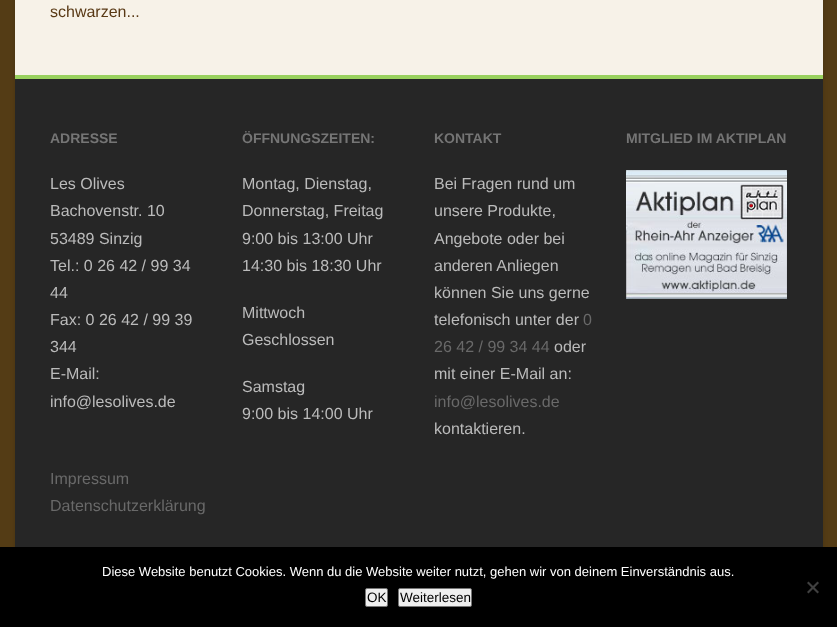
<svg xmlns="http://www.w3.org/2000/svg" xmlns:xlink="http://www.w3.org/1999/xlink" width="837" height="627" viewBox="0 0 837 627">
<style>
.cls-1{font:16px Liberation Sans;fill:#593915}
.cls-2{font:bold 14px Liberation Sans;fill:#757575}
.cls-3{font:16px Liberation Sans;fill:#bbbbbb}
.cls-4{font:16px Liberation Sans;fill:#696969}
.cls-5{font:13px Liberation Sans;fill:#ffffff}
.cls-6{font:13.5px Liberation Sans;fill:#000000}
</style>
<rect width="100%" height="100%" fill="#543c15"/>
<rect fill="#000000" fill-opacity="0.15" filter="blur(2.5px)" x="15" y="-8" width="808" height="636"/>
<rect fill="#f7f2e8" x="15" y="0" width="808" height="75"/>
<rect fill="#262626" x="15" y="79" width="808" height="468"/>
<rect fill="#99d15e" x="15" y="75" width="808" height="4"/>
<image xlink:href="image0.png" x="626" y="170" width="161" height="129"/>
<rect fill="#000000" x="0" y="547" width="837" height="80"/>
<path fill="#404040" d="M817.5 581.5L819 583L808.5 593.5L807 592Z"/>
<path fill="#404040" d="M807 583L808.5 581.5L819 592L817.5 593.5Z"/>
<rect fill="#efefef" stroke="#767676" x="365.5" y="588.5" width="22" height="18" rx="1.5"/>
<rect fill="#efefef" stroke="#767676" x="398.5" y="588.5" width="73" height="18" rx="1.5"/>
<text class="cls-1" x="50" y="17">schwarzen...</text>
<text class="cls-2" x="50" y="143">ADRESSE</text>
<text class="cls-3"><tspan x="50" y="189">Les Olives</tspan><tspan x="50" y="216">Bachovenstr. 10</tspan><tspan x="50" y="244">53489 Sinzig</tspan><tspan x="50" y="271">Tel.: 0 26 42 / 99 34</tspan><tspan x="50" y="298">44</tspan><tspan x="50" y="325">Fax: 0 26 42 / 99 39</tspan><tspan x="50" y="352">344</tspan><tspan x="50" y="379">E-Mail:</tspan><tspan x="50" y="407">info@lesolives.de</tspan></text>
<text class="cls-4"><tspan x="50" y="484">Impressum</tspan><tspan x="50" y="511">Datenschutzerklärung</tspan></text>
<text class="cls-2" x="242" y="143">ÖFFNUNGSZEITEN:</text>
<text class="cls-3"><tspan x="242" y="189">Montag, Dienstag,</tspan><tspan x="242" y="216">Donnerstag, Freitag</tspan><tspan x="242" y="244">9:00 bis 13:00 Uhr</tspan><tspan x="242" y="271">14:30 bis 18:30 Uhr</tspan></text>
<text class="cls-3"><tspan x="242" y="318">Mittwoch</tspan><tspan x="242" y="345">Geschlossen</tspan></text>
<text class="cls-3"><tspan x="242" y="392">Samstag</tspan><tspan x="242" y="419">9:00 bis 14:00 Uhr</tspan></text>
<text class="cls-2" x="434" y="143">KONTAKT</text>
<text class="cls-3"><tspan x="434" y="189">Bei Fragen rund um</tspan><tspan x="434" y="216">unsere Produkte,</tspan><tspan x="434" y="244">Angebote oder bei</tspan><tspan x="434" y="271">anderen Anliegen</tspan><tspan x="434" y="298">können Sie uns gerne</tspan><tspan x="434" y="325">telefonisch unter der</tspan></text>
<text class="cls-4" x="583" y="325">0</text>
<text class="cls-4" x="434" y="352">26 42 / 99 34 44</text>
<text class="cls-3" x="554" y="352">oder</text>
<text class="cls-3" x="434" y="379">mit einer E-Mail an:</text>
<text class="cls-4" x="434" y="407">info@lesolives.de</text>
<text class="cls-3" x="434" y="434">kontaktieren.</text>
<text class="cls-2" x="626" y="143">MITGLIED IM AKTIPLAN</text>
<text class="cls-5" x="102" y="576">Diese Website benutzt Cookies. Wenn du die Website weiter nutzt, gehen wir von deinem Einverständnis aus.</text>
<text class="cls-6" x="367" y="602">OK</text>
<text class="cls-6" x="400" y="602">Weiterlesen</text>
</svg>
